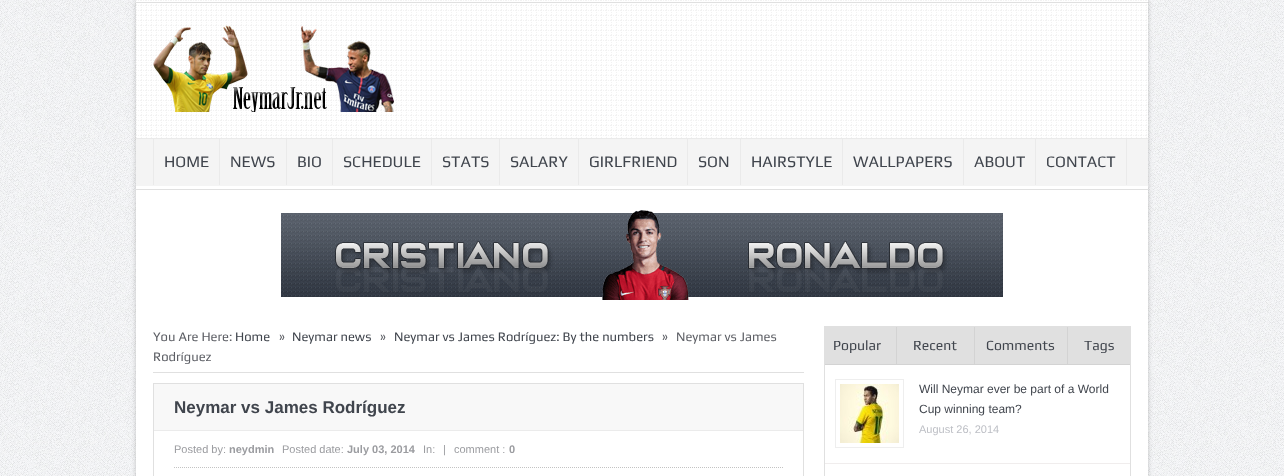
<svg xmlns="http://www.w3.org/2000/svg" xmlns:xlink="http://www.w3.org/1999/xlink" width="1284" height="476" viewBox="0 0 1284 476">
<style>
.cls-1{font:16px Play;fill:#40454d}
.cls-2{font:13px Play;fill:#5e6066}
.cls-3{font:13px Play;fill:#40454d}
.cls-4{font:14px Play;fill:#5e6066}
.cls-5{font:bold 17px Liberation Sans;fill:#40454d}
.cls-6{font:11px Liberation Sans;fill:#9b9ca0}
.cls-7{font:bold 11px Liberation Sans;fill:#9b9ca0}
.cls-8{font:14px Play;fill:#40454d}
.cls-9{font:12px Liberation Sans;fill:#40454d}
.cls-10{font:11px Liberation Sans;fill:#bdbfc5}
</style>
<rect width="100%" height="100%" fill="#ffffff"/>
<image xlink:href="image0.png" x="0" y="0" width="1284" height="476"/>
<rect fill="#000000" fill-opacity="0.2" filter="blur(2.5px)" x="136" y="0" width="1012" height="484"/>
<rect fill="#ffffff" x="136" y="0" width="1012" height="476"/>
<image xlink:href="image1.png" x="136" y="0" width="1011" height="138"/>
<rect fill="#e0e0e0" x="136" y="2" width="1012" height="1"/>
<image xlink:href="image2.png" x="153" y="25" width="241" height="87"/>
<rect fill="#e0e0e0" x="136" y="189" width="1012" height="1"/>
<rect fill="#f4f4f4" x="136" y="139" width="1012" height="47"/>
<rect fill="#eaeaea" x="136" y="138" width="1012" height="1"/>
<rect fill="#eaeaea" x="219" y="139" width="1" height="46"/>
<rect fill="#eaeaea" x="153" y="139" width="1" height="46"/>
<rect fill="#eaeaea" x="286" y="139" width="1" height="46"/>
<rect fill="#eaeaea" x="332" y="139" width="1" height="46"/>
<rect fill="#eaeaea" x="431" y="139" width="1" height="46"/>
<rect fill="#eaeaea" x="499" y="139" width="1" height="46"/>
<rect fill="#eaeaea" x="578" y="139" width="1" height="46"/>
<rect fill="#eaeaea" x="687" y="139" width="1" height="46"/>
<rect fill="#eaeaea" x="740" y="139" width="1" height="46"/>
<rect fill="#eaeaea" x="842" y="139" width="1" height="46"/>
<rect fill="#eaeaea" x="963" y="139" width="1" height="46"/>
<rect fill="#eaeaea" x="1035" y="139" width="1" height="46"/>
<rect fill="#eaeaea" x="1126" y="139" width="1" height="46"/>
<image xlink:href="image3.png" x="281" y="210" width="722" height="90"/>
<rect fill="#e0e0e0" x="153" y="372" width="651" height="1"/>
<rect fill="none" stroke="#e0e0e0" x="153.5" y="383.5" width="650" height="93"/>
<rect fill="#f8f8f8" x="154" y="384" width="649" height="46"/>
<rect fill="#ebebeb" x="154" y="430" width="649" height="1"/>
<path fill="none" stroke="#c3c3c3" stroke-dasharray="1 1" d="M174 467.5H783"/>
<rect fill="none" stroke="#e0e0e0" x="824.5" y="326.5" width="306" height="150"/>
<rect fill="#e0e0e0" x="825" y="327" width="71" height="37"/>
<rect fill="#d3d3d3" x="896" y="327" width="1" height="38"/>
<rect fill="#d3d3d3" x="825" y="364" width="72" height="1"/>
<rect fill="#e0e0e0" x="897" y="327" width="77" height="37"/>
<rect fill="#d3d3d3" x="974" y="327" width="1" height="38"/>
<rect fill="#d3d3d3" x="897" y="364" width="78" height="1"/>
<rect fill="#e0e0e0" x="975" y="327" width="92" height="37"/>
<rect fill="#d3d3d3" x="1067" y="327" width="1" height="38"/>
<rect fill="#d3d3d3" x="975" y="364" width="155" height="1"/>
<rect fill="#e0e0e0" x="1068" y="327" width="62" height="37"/>
<rect fill="#f0eded" x="825" y="463" width="305" height="1"/>
<rect fill="none" stroke="#eeeeee" x="835.5" y="379.5" width="68" height="68"/>
<image xlink:href="image4.png" x="840" y="384" width="59" height="59"/>
<text class="cls-1" x="164" y="167">HOME</text>
<text class="cls-1" x="230" y="167">NEWS</text>
<text class="cls-1" x="297" y="167">BIO</text>
<text class="cls-1" x="343" y="167">SCHEDULE</text>
<text class="cls-1" x="442" y="167">STATS</text>
<text class="cls-1" x="510" y="167">SALARY</text>
<text class="cls-1" x="589" y="167">GIRLFRIEND</text>
<text class="cls-1" x="698" y="167">SON</text>
<text class="cls-1" x="751" y="167">HAIRSTYLE</text>
<text class="cls-1" x="853" y="167">WALLPAPERS</text>
<text class="cls-1" x="974" y="167">ABOUT</text>
<text class="cls-1" x="1046" y="167">CONTACT</text>
<text class="cls-2" x="153" y="341">You Are Here:</text>
<text class="cls-3" x="235" y="341">Home</text>
<text class="cls-4" x="279" y="341">»</text>
<text class="cls-3" x="292" y="341">Neymar news</text>
<text class="cls-4" x="380" y="341">»</text>
<text class="cls-3" x="394" y="341">Neymar vs James Rodríguez: By the numbers</text>
<text class="cls-4" x="662" y="341">»</text>
<text class="cls-2" x="676" y="341">Neymar vs James</text>
<text class="cls-2" x="153" y="361">Rodríguez</text>
<text class="cls-5" x="174" y="413">Neymar vs James Rodríguez</text>
<text class="cls-6" x="174" y="453">Posted by:</text>
<text class="cls-7" x="229" y="453">neydmin</text>
<text class="cls-6" x="282" y="453">Posted date:</text>
<text class="cls-7" x="347" y="453">July 03, 2014</text>
<text class="cls-6" x="423" y="453">In:</text>
<text class="cls-6" x="443" y="453">|</text>
<text class="cls-6" x="454" y="453">comment :</text>
<text class="cls-7" x="509" y="453">0</text>
<text class="cls-8" x="833" y="350">Popular</text>
<text class="cls-8" x="913" y="350">Recent</text>
<text class="cls-8" x="986" y="350">Comments</text>
<text class="cls-8" x="1084" y="350">Tags</text>
<text class="cls-9"><tspan x="919" y="393">Will Neymar ever be part of a World</tspan><tspan x="919" y="413">Cup winning team?</tspan></text>
<text class="cls-10" x="919" y="433">August 26, 2014</text>
</svg>
